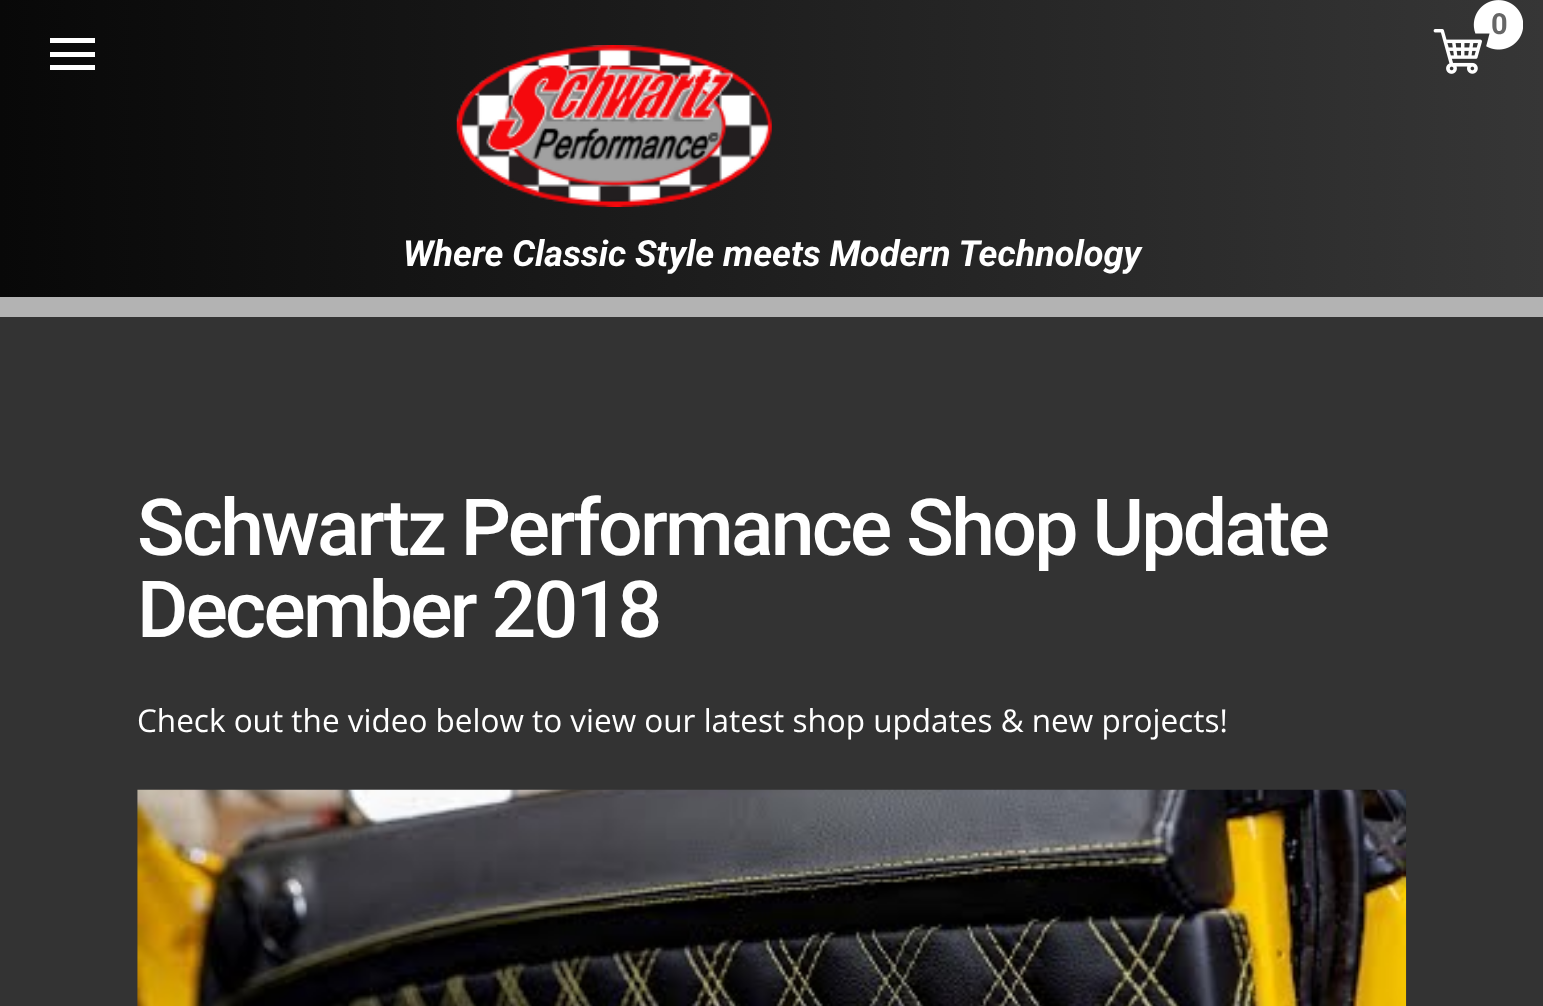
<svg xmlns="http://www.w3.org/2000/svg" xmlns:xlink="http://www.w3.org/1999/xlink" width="1543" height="1006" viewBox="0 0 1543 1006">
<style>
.cls-1{font:bold 29px Roboto;fill:#666666}
.cls-2{font:italic bold 36px Roboto;fill:#ffffff}
.cls-3{font:500 78.75px Roboto;letter-spacing:-2.75px;fill:#ffffff}
.cls-4{font:31.5px Open Sans;fill:#ffffff}
</style>
<defs>
<linearGradient id="g1" gradientUnits="userSpaceOnUse" x1="0" y1="115" x2="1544" y2="115"><stop offset="0" stop-color="#080808"/><stop offset="1" stop-color="#363636"/></linearGradient>
<linearGradient id="g2" gradientUnits="userSpaceOnUse" x1="0" y1="263" x2="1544" y2="263"><stop offset="0" stop-color="#080808"/><stop offset="1" stop-color="#363636"/></linearGradient>
</defs>
<rect width="100%" height="100%" fill="#333333"/>
<rect fill="url(#g1)" x="0" y="0" width="1543" height="230"/>
<image xlink:href="image0.png" x="1433" y="0" width="90" height="74"/>
<rect fill="#ffffff" x="50" y="38" width="45" height="5"/>
<rect fill="#ffffff" x="50" y="52" width="45" height="5"/>
<rect fill="#ffffff" x="50" y="65" width="45" height="5"/>
<image xlink:href="image1.png" x="456" y="45" width="316" height="162"/>
<rect fill="url(#g2)" x="0" y="230" width="1543" height="67"/>
<rect fill="#b3b3b3" x="0" y="297" width="1543" height="20"/>
<image xlink:href="image2.png" x="137" y="789" width="1270" height="217"/>
<text class="cls-1" x="1491" y="34">0</text>
<text class="cls-2" x="403" y="266">Where Classic Style meets Modern Technology</text>
<text class="cls-3"><tspan x="137" y="555">Schwartz Performance Shop Update</tspan><tspan x="137" y="637">December 2018</tspan></text>
<text class="cls-4" x="137" y="732">Check out the video below to view our latest shop updates &amp; new projects!</text>
</svg>
